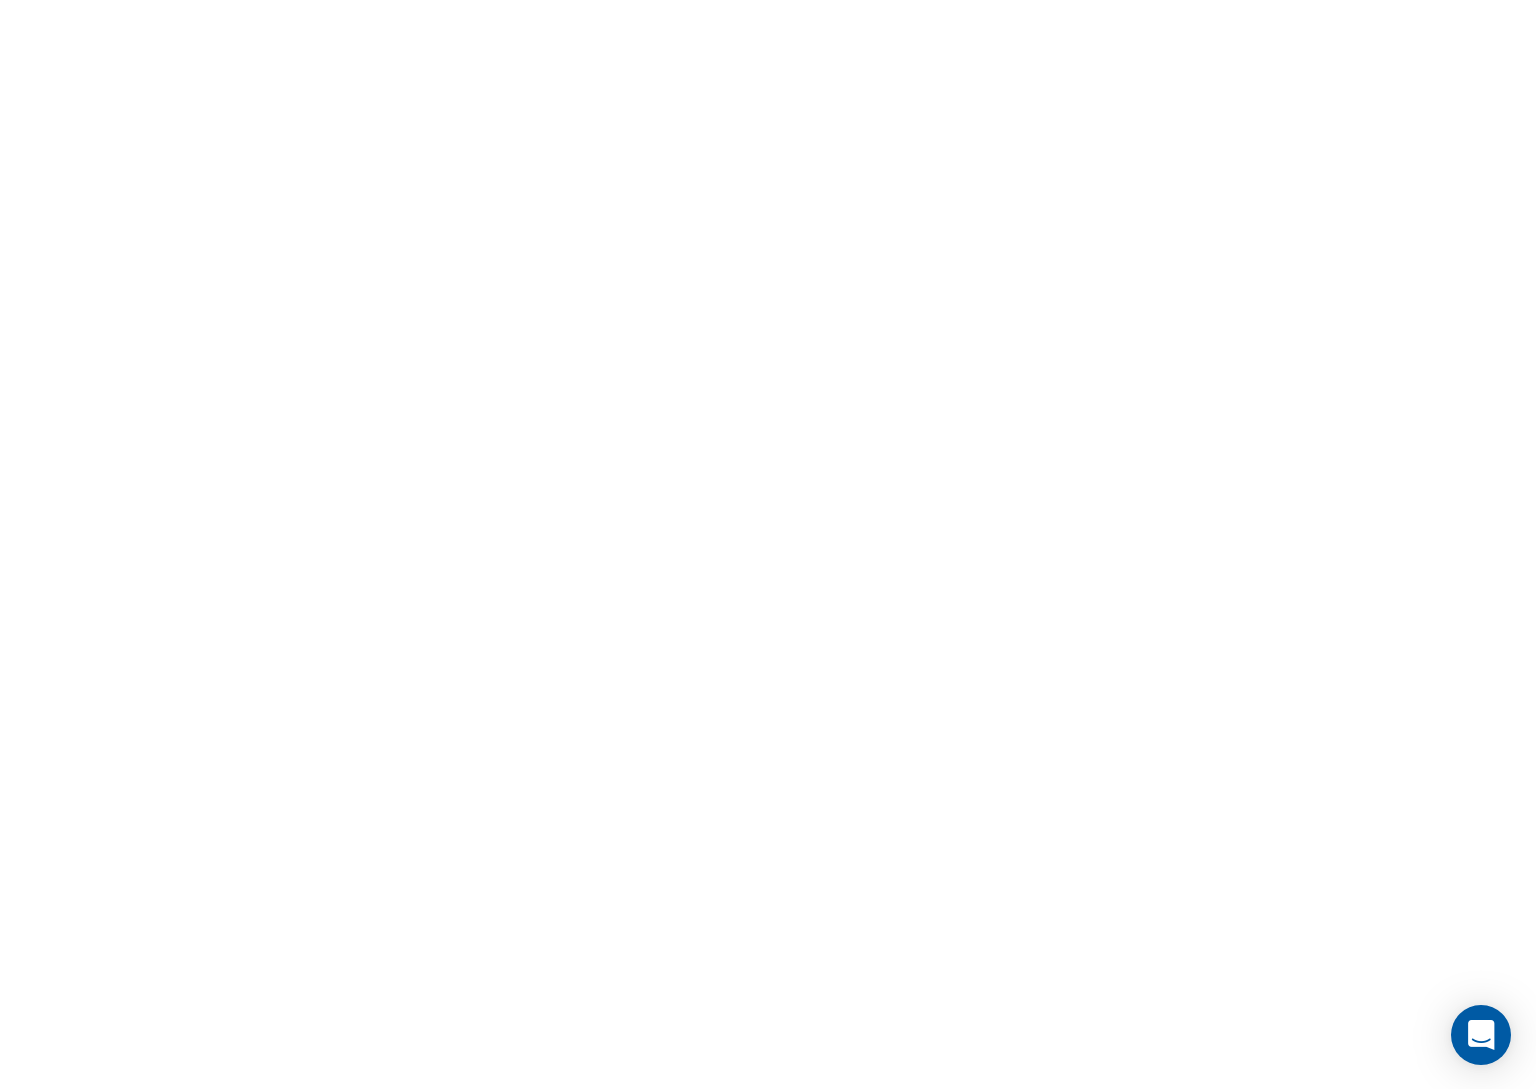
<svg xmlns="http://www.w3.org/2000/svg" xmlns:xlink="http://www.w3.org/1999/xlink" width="1536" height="1089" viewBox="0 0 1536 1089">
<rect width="100%" height="100%" fill="#ffffff"/>
<rect fill="#000000" fill-opacity="0.16" filter="blur(20px)" x="1451" y="1008" width="60" height="60" rx="30"/>
<rect fill="#000000" fill-opacity="0.06" filter="blur(4px)" x="1451" y="1006" width="60" height="60" rx="30"/>
<circle fill="#005aa4" cx="1481" cy="1035" r="30"/>
<image xlink:href="image0.png" x="1468" y="1020" width="27" height="30"/>
</svg>
